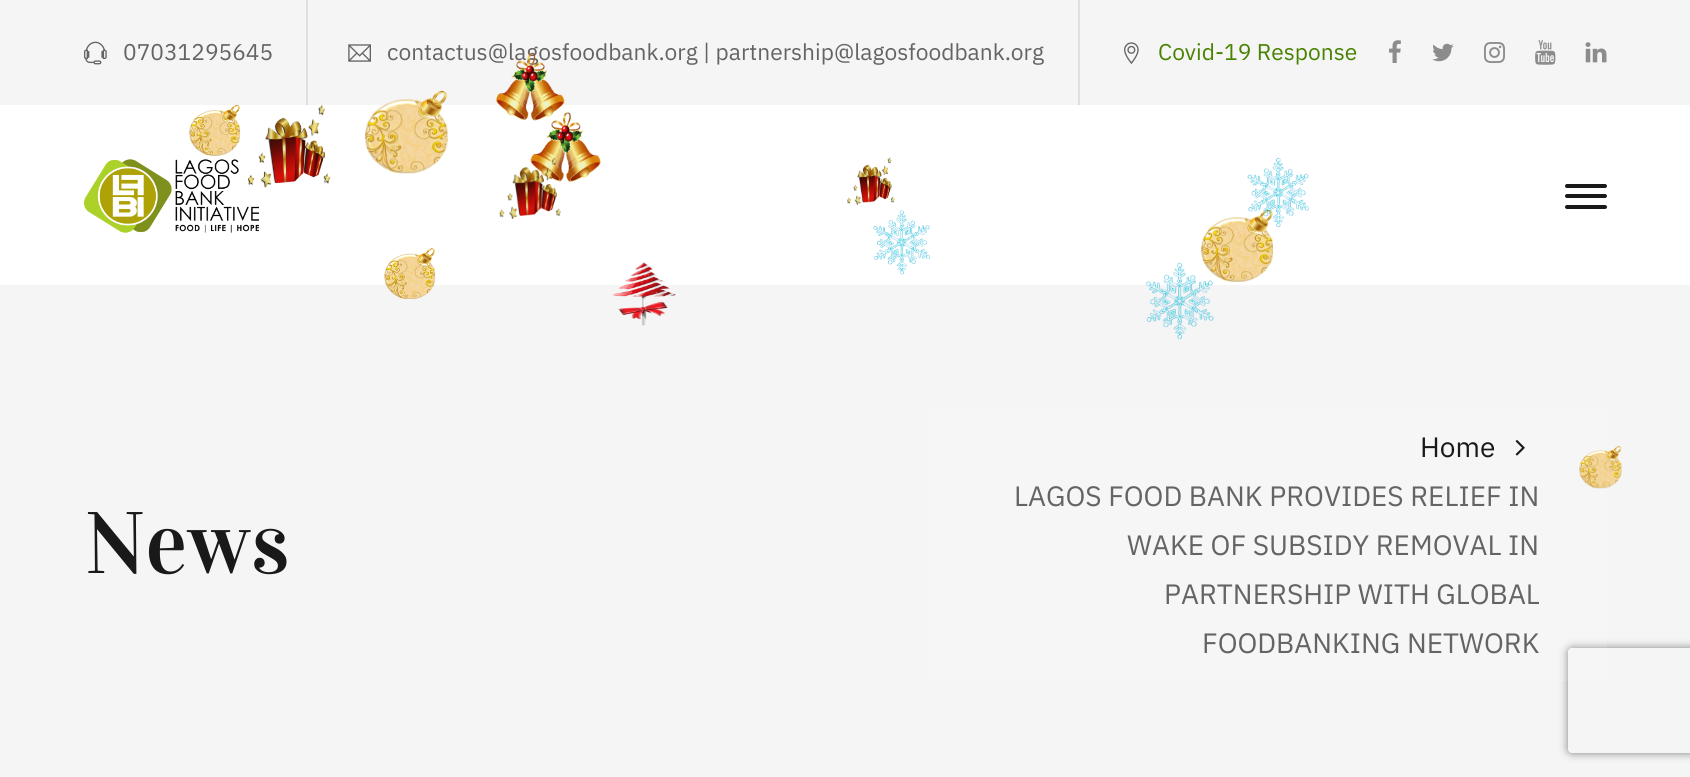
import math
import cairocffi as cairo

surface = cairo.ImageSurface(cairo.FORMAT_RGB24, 1690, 777)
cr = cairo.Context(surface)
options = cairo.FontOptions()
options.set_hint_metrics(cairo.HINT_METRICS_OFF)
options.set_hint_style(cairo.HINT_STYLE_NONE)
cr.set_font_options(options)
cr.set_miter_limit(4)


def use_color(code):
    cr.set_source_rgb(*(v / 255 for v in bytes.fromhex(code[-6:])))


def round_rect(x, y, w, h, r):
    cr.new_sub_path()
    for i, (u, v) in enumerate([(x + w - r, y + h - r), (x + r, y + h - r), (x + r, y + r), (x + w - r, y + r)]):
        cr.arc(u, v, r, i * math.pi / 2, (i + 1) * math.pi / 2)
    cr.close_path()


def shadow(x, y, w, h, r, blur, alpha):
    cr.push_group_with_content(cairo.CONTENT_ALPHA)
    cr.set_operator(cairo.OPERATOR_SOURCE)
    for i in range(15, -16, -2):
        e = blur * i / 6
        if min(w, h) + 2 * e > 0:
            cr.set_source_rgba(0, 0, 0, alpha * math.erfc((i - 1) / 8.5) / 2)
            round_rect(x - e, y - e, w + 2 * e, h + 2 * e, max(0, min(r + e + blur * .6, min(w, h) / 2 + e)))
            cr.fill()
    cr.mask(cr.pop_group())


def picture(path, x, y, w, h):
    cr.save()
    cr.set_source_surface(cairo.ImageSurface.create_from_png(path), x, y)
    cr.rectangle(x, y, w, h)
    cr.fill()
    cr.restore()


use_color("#ffffff")
cr.paint()
use_color("#f5f5f5")
cr.rectangle(0, 0, 1690, 105)
cr.fill()
picture("img1.png", 84, 41, 23, 24)
cr.select_font_face("IBM Plex Sans")
cr.set_font_size(22.75)
use_color("#646464")
cr.move_to(123, 60)
cr.show_text("07031295645")
use_color("#dddfe1")
cr.rectangle(306, 0, 2, 105)
cr.fill()
picture("img2.png", 348, 44, 23, 18)
use_color("#646464")
cr.move_to(387, 60)
cr.show_text("contactus@lagosfoodbank.org | partnership@lagosfoodbank.org")
use_color("#dddfe1")
cr.rectangle(1078, 0, 2, 105)
cr.fill()
picture("img3.png", 1124, 42, 15, 22)
use_color("#488201")
cr.move_to(1158, 60)
cr.show_text("Covid-19 Response")
picture("img4.png", 1389, 40, 12, 23)
picture("img5.png", 1432, 43, 22, 19)
picture("img6.png", 1484, 42, 21, 21)
picture("img7.png", 1535, 40, 21, 25)
picture("img8.png", 1585, 42, 22, 21)
picture("img9.png", 84, 159, 175, 74)
use_color("#191919")
round_rect(1565, 184, 42, 4, 2)
cr.fill()
round_rect(1565, 194, 42, 4, 2)
cr.fill()
round_rect(1565, 205, 42, 4, 2)
cr.fill()
use_color("#f5f5f5")
cr.rectangle(0, 285, 1690, 492)
cr.fill()
cr.select_font_face("Vidaloka")
cr.set_font_size(87.5)
use_color("#191919")
cr.move_to(85, 573)
cr.show_text("News")
cr.save()
cr.set_fill_rule(cairo.FILL_RULE_EVEN_ODD)
cr.new_path()
cr.move_to(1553, 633)
cr.line_to(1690, 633)
cr.line_to(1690, 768)
cr.line_to(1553, 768)
cr.close_path()
cr.move_to(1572, 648)
cr.line_to(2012, 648)
cr.curve_to(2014, 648, 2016, 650, 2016, 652)
cr.line_to(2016, 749)
cr.curve_to(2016, 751, 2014, 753, 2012, 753)
cr.line_to(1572, 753)
cr.curve_to(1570, 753, 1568, 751, 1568, 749)
cr.line_to(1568, 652)
cr.curve_to(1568, 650, 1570, 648, 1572, 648)
cr.close_path()
cr.clip()
use_color("#808080")
shadow(1568, 648, 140, 105, 4, 4.5, 1)
cr.restore()
cr.set_source_rgba(1, 1, 1, 0.1)
round_rect(929, 408, 678, 273, 9)
cr.fill()
cr.select_font_face("IBM Plex Sans")
cr.set_font_size(28)
use_color("#191919")
cr.move_to(1420, 457)
cr.show_text("Home")
picture("img10.png", 1515, 440, 10, 16)
use_color("#646464")
cr.move_to(1014, 506)
cr.show_text("LAGOS FOOD BANK PROVIDES RELIEF IN")
cr.move_to(1127, 555)
cr.show_text("WAKE OF SUBSIDY REMOVAL IN")
cr.move_to(1164, 604)
cr.show_text("PARTNERSHIP WITH GLOBAL")
cr.move_to(1202, 653)
cr.show_text("FOODBANKING NETWORK")
picture("img11.png", 189, 105, 52, 51)
picture("img12.png", 248, 105, 83, 83)
picture("img13.png", 365, 91, 83, 83)
picture("img15.png", 530, 112, 71, 70)
picture("img14.png", 496, 52, 69, 69)
picture("img16.png", 499, 157, 62, 62)
picture("img17.png", 847, 157, 48, 48)
picture("img23.png", 1201, 210, 72, 72)
picture("img18.png", 1247, 157, 62, 71)
picture("img19.png", 384, 248, 52, 52)
picture("img20.png", 612, 262, 64, 64)
picture("img21.png", 873, 210, 57, 65)
picture("img22.png", 1145, 262, 69, 78)
picture("img24.png", 1579, 446, 43, 43)
surface.write_to_png("result.png")
